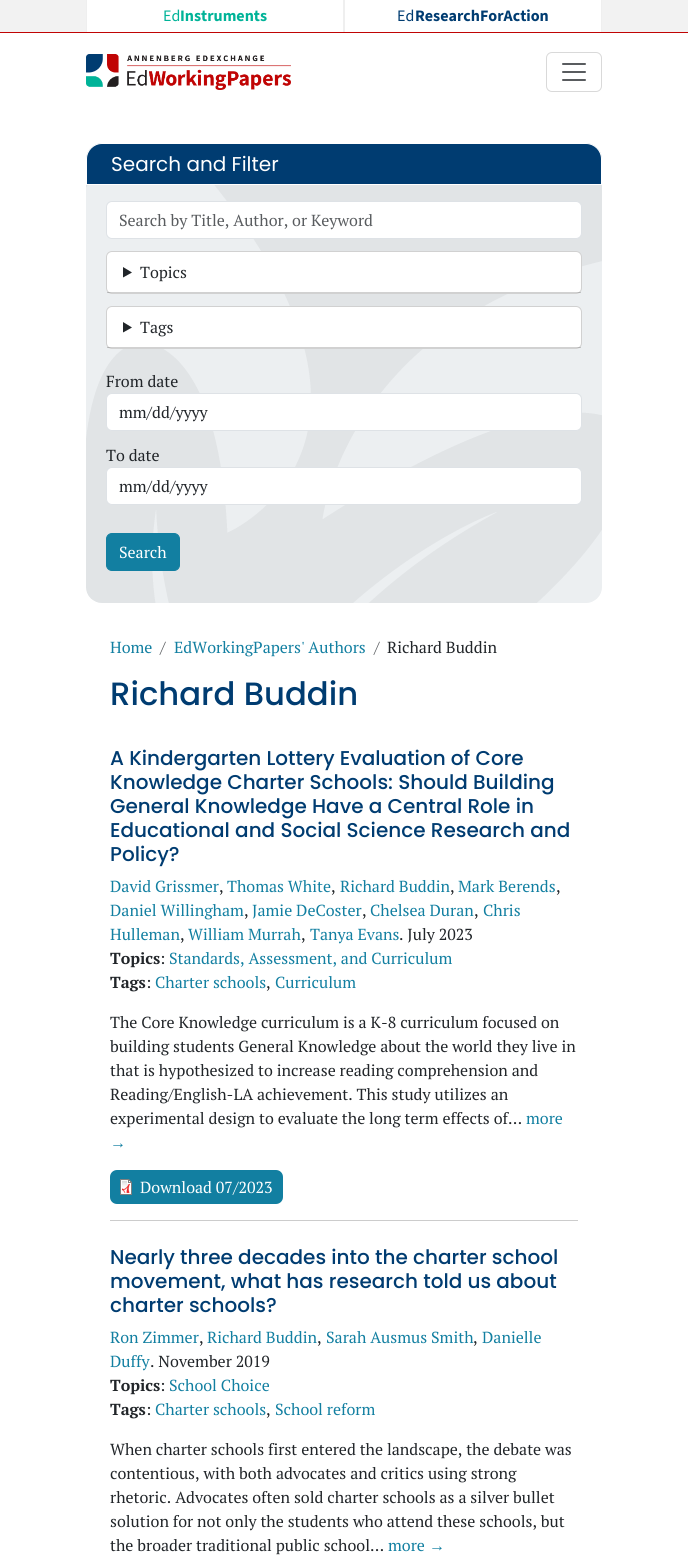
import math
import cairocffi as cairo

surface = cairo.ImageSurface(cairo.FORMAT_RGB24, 688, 1557)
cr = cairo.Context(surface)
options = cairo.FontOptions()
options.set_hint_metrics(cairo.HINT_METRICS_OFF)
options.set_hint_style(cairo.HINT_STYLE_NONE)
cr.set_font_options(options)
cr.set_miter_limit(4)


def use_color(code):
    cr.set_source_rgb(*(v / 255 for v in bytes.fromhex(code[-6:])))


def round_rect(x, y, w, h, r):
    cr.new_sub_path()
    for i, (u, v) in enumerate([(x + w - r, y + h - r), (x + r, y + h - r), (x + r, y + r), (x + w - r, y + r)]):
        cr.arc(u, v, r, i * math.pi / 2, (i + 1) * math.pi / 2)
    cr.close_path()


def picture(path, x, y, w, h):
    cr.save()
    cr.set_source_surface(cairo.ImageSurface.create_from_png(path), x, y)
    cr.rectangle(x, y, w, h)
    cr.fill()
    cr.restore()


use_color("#ffffff")
cr.paint()
use_color("#f2f2f2")
cr.rectangle(0, 0, 688, 32)
cr.fill()
use_color("#c00404")
cr.rectangle(0, 32, 688, 1)
cr.fill()
use_color("#ffffff")
cr.rectangle(87, 0, 256, 32)
cr.fill()
use_color("#efefef")
cr.rectangle(343, 0, 2, 32)
cr.fill()
cr.rectangle(86, 0, 1, 32)
cr.fill()
cr.select_font_face("Source Sans 3")
cr.set_font_size(16)
use_color("#00b398")
cr.move_to(163, 21)
cr.show_text("Ed")
cr.select_font_face("Source Sans 3", cairo.FONT_SLANT_NORMAL, cairo.FONT_WEIGHT_BOLD)
cr.move_to(180, 21)
cr.show_text("Instruments")
use_color("#ffffff")
cr.rectangle(345, 0, 256, 32)
cr.fill()
use_color("#efefef")
cr.rectangle(601, 0, 1, 32)
cr.fill()
cr.select_font_face("Source Sans 3")
use_color("#003c71")
cr.move_to(397, 21)
cr.show_text("Ed")
cr.select_font_face("Source Sans 3", cairo.FONT_SLANT_NORMAL, cairo.FONT_WEIGHT_BOLD)
cr.move_to(415, 21)
cr.show_text("ResearchForAction")
picture("img1.png", 86, 54, 205, 36)
round_rect(546.5, 52.5, 55, 39, 5.5)
use_color("#d9d9d9")
cr.set_line_width(1)
cr.stroke()
picture("img2.png", 562, 63, 24, 18)
picture("img3.png", 86, 143, 516, 460)
use_color("#003c71")
cr.new_path()
cr.move_to(102, 143.5)
cr.line_to(586, 143.5)
cr.curve_to(594.5, 143.5, 601.5, 150.5, 601.5, 159)
cr.line_to(601.5, 184.5)
cr.line_to(86.5, 184.5)
cr.line_to(86.5, 159)
cr.curve_to(86.5, 150.5, 93.5, 143.5, 102, 143.5)
cr.close_path()
cr.fill_preserve()
use_color("#ffffff")
cr.stroke()
cr.select_font_face("Poppins")
cr.set_font_size(20)
cr.move_to(111, 171)
cr.show_text("Search and Filter")
round_rect(106.5, 201.5, 475, 37, 5.5)
cr.fill_preserve()
use_color("#dee2e6")
cr.stroke()
cr.select_font_face("PT Serif")
cr.set_font_size(16)
use_color("#595c5f")
cr.move_to(119, 226)
cr.show_text("Search by Title, Author, or Keyword")
use_color("#ffffff")
round_rect(106, 251, 476, 43, 6)
cr.fill()
round_rect(106.5, 251.5, 475, 42, 5.5)
cr.set_source_rgba(0, 0, 0, 0.18)
cr.stroke()
cr.rectangle(107, 292, 474, 1)
cr.fill()
use_color("#212529")
cr.new_path()
cr.move_to(123, 267)
cr.line_to(132, 272.5)
cr.line_to(123, 277.5)
cr.close_path()
cr.fill()
cr.move_to(140, 278)
cr.show_text("Topics")
use_color("#ffffff")
round_rect(106, 306, 476, 43, 6)
cr.fill()
round_rect(106.5, 306.5, 475, 42, 5.5)
cr.set_source_rgba(0, 0, 0, 0.18)
cr.stroke()
cr.rectangle(107, 347, 474, 1)
cr.fill()
use_color("#212529")
cr.new_path()
cr.move_to(123, 322)
cr.line_to(132, 327.5)
cr.line_to(123, 332.5)
cr.close_path()
cr.fill()
cr.move_to(140, 333)
cr.show_text("Tags")
cr.move_to(106, 387)
cr.show_text("From date")
use_color("#ffffff")
round_rect(106.5, 393.5, 475, 37, 5.5)
cr.fill_preserve()
use_color("#dee2e6")
cr.stroke()
use_color("#212529")
cr.move_to(119, 418)
cr.show_text("mm/dd/yyyy")
cr.move_to(106, 461)
cr.show_text("To date")
use_color("#ffffff")
round_rect(106.5, 467.5, 475, 37, 5.5)
cr.fill_preserve()
use_color("#dee2e6")
cr.stroke()
use_color("#212529")
cr.move_to(119, 492)
cr.show_text("mm/dd/yyyy")
use_color("#127fa1")
round_rect(106.5, 533.5, 73, 37, 5.5)
cr.fill_preserve()
cr.stroke()
use_color("#ffffff")
cr.move_to(119, 558)
cr.show_text("Search")
use_color("#127fa1")
cr.move_to(110, 653)
cr.show_text("Home")
use_color("#595c5f")
cr.move_to(160, 653)
cr.show_text("/")
use_color("#127fa1")
cr.move_to(174, 653)
cr.show_text("EdWorkingPapers' Authors")
use_color("#595c5f")
cr.move_to(374, 653)
cr.show_text("/")
use_color("#212529")
cr.move_to(387, 653)
cr.show_text("Richard Buddin")
cr.select_font_face("Poppins Medium")
cr.set_font_size(32.25)
use_color("#003c71")
cr.move_to(110, 705)
cr.show_text("Richard Buddin")
use_color("#cccccc")
cr.rectangle(110, 1220, 468, 1)
cr.fill()
cr.set_font_size(20)
use_color("#003c71")
cr.move_to(110, 765)
cr.show_text("A Kindergarten Lottery Evaluation of Core")
cr.move_to(110, 789)
cr.show_text("Knowledge Charter Schools: Should Building")
cr.move_to(110, 813)
cr.show_text("General Knowledge Have a Central Role in")
cr.move_to(110, 837)
cr.show_text("Educational and Social Science Research and")
cr.move_to(110, 861)
cr.show_text("Policy?")
cr.select_font_face("PT Serif")
cr.set_font_size(16)
use_color("#127fa1")
cr.move_to(110, 892)
cr.show_text("David Grissmer")
use_color("#212529")
cr.move_to(219, 892)
cr.show_text(",")
use_color("#127fa1")
cr.move_to(227, 892)
cr.show_text("Thomas White")
use_color("#212529")
cr.move_to(331, 892)
cr.show_text(",")
use_color("#127fa1")
cr.move_to(340, 892)
cr.show_text("Richard Buddin")
use_color("#212529")
cr.move_to(450, 892)
cr.show_text(",")
use_color("#127fa1")
cr.move_to(458, 892)
cr.show_text("Mark Berends")
use_color("#212529")
cr.move_to(556, 892)
cr.show_text(",")
use_color("#127fa1")
cr.move_to(110, 916)
cr.show_text("Daniel Willingham")
use_color("#212529")
cr.move_to(244, 916)
cr.show_text(",")
use_color("#127fa1")
cr.move_to(252, 916)
cr.show_text("Jamie DeCoster")
use_color("#212529")
cr.move_to(362, 916)
cr.show_text(",")
use_color("#127fa1")
cr.move_to(370, 916)
cr.show_text("Chelsea Duran")
use_color("#212529")
cr.move_to(474, 916)
cr.show_text(",")
use_color("#127fa1")
cr.move_to(483, 916)
cr.show_text("Chris")
cr.move_to(110, 940)
cr.show_text("Hulleman")
use_color("#212529")
cr.move_to(180, 940)
cr.show_text(",")
use_color("#127fa1")
cr.move_to(188, 940)
cr.show_text("William Murrah")
use_color("#212529")
cr.move_to(301, 940)
cr.show_text(",")
use_color("#127fa1")
cr.move_to(310, 940)
cr.show_text("Tanya Evans")
use_color("#212529")
cr.move_to(399, 940)
cr.show_text(". July 2023")
cr.select_font_face("PT Serif", cairo.FONT_SLANT_NORMAL, cairo.FONT_WEIGHT_BOLD)
cr.move_to(110, 964)
cr.show_text("Topics")
cr.select_font_face("PT Serif")
cr.move_to(160, 964)
cr.show_text(":")
use_color("#127fa1")
cr.move_to(169, 964)
cr.show_text("Standards, Assessment, and Curriculum")
cr.select_font_face("PT Serif", cairo.FONT_SLANT_NORMAL, cairo.FONT_WEIGHT_BOLD)
use_color("#212529")
cr.move_to(110, 988)
cr.show_text("Tags")
cr.select_font_face("PT Serif")
cr.move_to(146, 988)
cr.show_text(":")
use_color("#127fa1")
cr.move_to(155, 988)
cr.show_text("Charter schools")
use_color("#212529")
cr.move_to(266, 988)
cr.show_text(",")
use_color("#127fa1")
cr.move_to(275, 988)
cr.show_text("Curriculum")
use_color("#212529")
cr.move_to(110, 1028)
cr.show_text("The Core Knowledge curriculum is a K-8 curriculum focused on")
cr.move_to(110, 1052)
cr.show_text("building students General Knowledge about the world they live in")
cr.move_to(110, 1076)
cr.show_text("that is hypothesized to increase reading comprehension and")
cr.move_to(110, 1100)
cr.show_text("Reading/English-LA achievement. This study utilizes an")
cr.move_to(110, 1124)
cr.show_text("experimental design to evaluate the long term effects of…")
use_color("#127fa1")
cr.move_to(526, 1124)
cr.show_text("more")
cr.select_font_face("Liberation Serif")
cr.move_to(110, 1148)
cr.show_text("→")
round_rect(110, 1170, 173, 34, 7)
cr.fill()
picture("img4.png", 120, 1179, 12, 16)
cr.select_font_face("PT Serif")
use_color("#ffffff")
cr.move_to(140, 1193)
cr.show_text("Download 07/2023")
cr.select_font_face("Poppins Medium")
cr.set_font_size(20)
use_color("#003c71")
cr.move_to(110, 1264)
cr.show_text("Nearly three decades into the charter school")
cr.move_to(110, 1288)
cr.show_text("movement, what has research told us about")
cr.move_to(110, 1312)
cr.show_text("charter schools?")
cr.select_font_face("PT Serif")
cr.set_font_size(16)
use_color("#127fa1")
cr.move_to(110, 1343)
cr.show_text("Ron Zimmer")
use_color("#212529")
cr.move_to(199, 1343)
cr.show_text(",")
use_color("#127fa1")
cr.move_to(207, 1343)
cr.show_text("Richard Buddin")
use_color("#212529")
cr.move_to(317, 1343)
cr.show_text(",")
use_color("#127fa1")
cr.move_to(326, 1343)
cr.show_text("Sarah Ausmus Smith")
use_color("#212529")
cr.move_to(473, 1343)
cr.show_text(",")
use_color("#127fa1")
cr.move_to(482, 1343)
cr.show_text("Danielle")
cr.move_to(110, 1367)
cr.show_text("Duffy")
use_color("#212529")
cr.move_to(150, 1367)
cr.show_text(". November 2019")
cr.select_font_face("PT Serif", cairo.FONT_SLANT_NORMAL, cairo.FONT_WEIGHT_BOLD)
cr.move_to(110, 1391)
cr.show_text("Topics")
cr.select_font_face("PT Serif")
cr.move_to(160, 1391)
cr.show_text(":")
use_color("#127fa1")
cr.move_to(169, 1391)
cr.show_text("School Choice")
cr.select_font_face("PT Serif", cairo.FONT_SLANT_NORMAL, cairo.FONT_WEIGHT_BOLD)
use_color("#212529")
cr.move_to(110, 1415)
cr.show_text("Tags")
cr.select_font_face("PT Serif")
cr.move_to(146, 1415)
cr.show_text(":")
use_color("#127fa1")
cr.move_to(155, 1415)
cr.show_text("Charter schools")
use_color("#212529")
cr.move_to(266, 1415)
cr.show_text(",")
use_color("#127fa1")
cr.move_to(275, 1415)
cr.show_text("School reform")
use_color("#212529")
cr.move_to(110, 1455)
cr.show_text("When charter schools first entered the landscape, the debate was")
cr.move_to(110, 1479)
cr.show_text("contentious, with both advocates and critics using strong")
cr.move_to(110, 1503)
cr.show_text("rhetoric. Advocates often sold charter schools as a silver bullet")
cr.move_to(110, 1527)
cr.show_text("solution for not only the students who attend these schools, but")
cr.move_to(110, 1551)
cr.show_text("the broader traditional public school…")
use_color("#127fa1")
cr.move_to(388, 1551)
cr.show_text("more")
cr.select_font_face("Liberation Serif")
cr.move_to(429, 1551)
cr.show_text("→")
surface.write_to_png("result.png")
